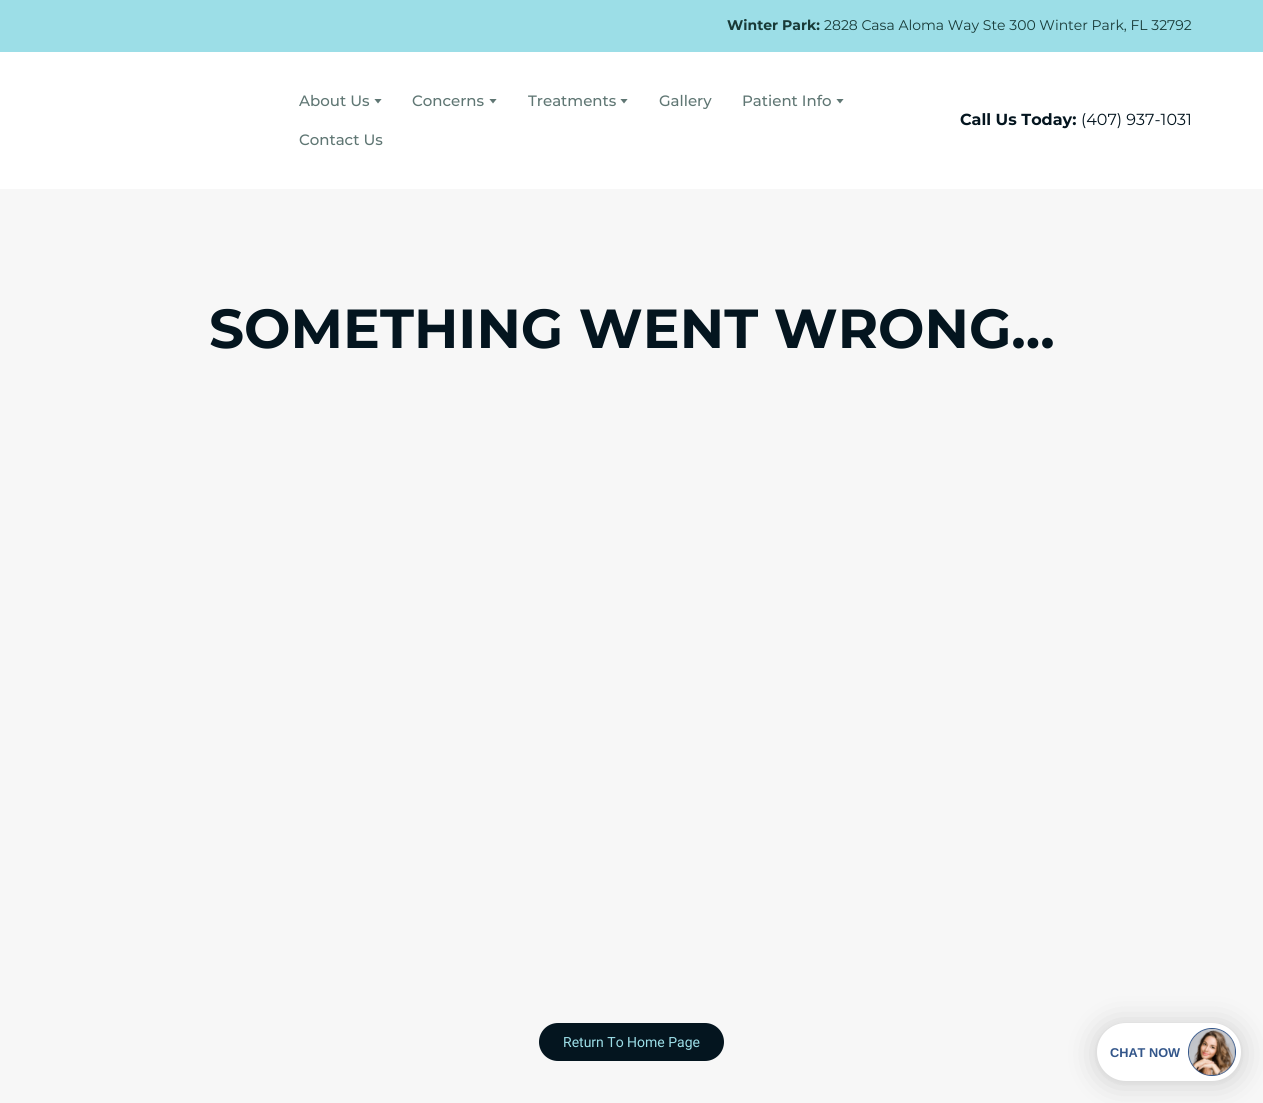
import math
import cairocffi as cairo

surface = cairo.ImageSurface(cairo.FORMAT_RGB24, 1263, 1103)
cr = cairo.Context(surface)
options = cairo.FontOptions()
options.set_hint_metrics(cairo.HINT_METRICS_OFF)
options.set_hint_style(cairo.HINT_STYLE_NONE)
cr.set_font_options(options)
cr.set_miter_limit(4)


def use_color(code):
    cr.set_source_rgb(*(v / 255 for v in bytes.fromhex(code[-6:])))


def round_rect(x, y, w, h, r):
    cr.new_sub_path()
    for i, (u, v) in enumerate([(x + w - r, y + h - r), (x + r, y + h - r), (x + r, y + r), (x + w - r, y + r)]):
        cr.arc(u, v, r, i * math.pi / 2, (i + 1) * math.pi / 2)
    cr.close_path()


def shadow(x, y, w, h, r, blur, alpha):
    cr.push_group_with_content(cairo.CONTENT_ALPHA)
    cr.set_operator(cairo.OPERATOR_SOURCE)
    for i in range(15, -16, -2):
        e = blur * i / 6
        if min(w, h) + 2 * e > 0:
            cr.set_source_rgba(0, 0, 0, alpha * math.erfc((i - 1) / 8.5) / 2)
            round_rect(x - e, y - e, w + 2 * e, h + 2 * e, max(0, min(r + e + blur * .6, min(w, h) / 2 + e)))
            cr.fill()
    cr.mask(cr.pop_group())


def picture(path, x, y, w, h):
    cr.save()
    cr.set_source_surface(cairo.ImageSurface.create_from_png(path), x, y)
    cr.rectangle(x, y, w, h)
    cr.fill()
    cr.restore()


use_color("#9cdee7")
cr.paint()
cr.select_font_face("Montserrat", cairo.FONT_SLANT_NORMAL, cairo.FONT_WEIGHT_BOLD)
cr.set_font_size(14)
use_color("#183a37")
cr.move_to(727, 30)
cr.show_text("Winter Park:")
cr.select_font_face("Montserrat")
cr.move_to(824, 30)
cr.show_text("2828 Casa Aloma Way Ste 300 Winter Park, FL 32792")
use_color("#ffffff")
cr.rectangle(0, 52, 1263, 137)
cr.fill()
cr.select_font_face("Montserrat Medium")
cr.set_font_size(15)
use_color("#5f7673")
cr.move_to(299, 106)
cr.show_text("About Us")
cr.save()
cr.rectangle(373, 99, 9, 5)
cr.clip()
cr.new_path()
cr.move_to(378, 103.5)
cr.line_to(382, 98.5)
cr.line_to(374, 98.5)
cr.close_path()
cr.fill()
cr.restore()
cr.move_to(412, 106)
cr.show_text("Concerns")
cr.save()
cr.rectangle(488, 99, 9, 5)
cr.clip()
cr.new_path()
cr.move_to(493, 103.5)
cr.line_to(497, 98.5)
cr.line_to(489, 98.5)
cr.close_path()
cr.fill()
cr.restore()
cr.move_to(528, 106)
cr.show_text("Treatments")
cr.save()
cr.rectangle(619, 99, 10, 5)
cr.clip()
cr.new_path()
cr.move_to(624, 103.5)
cr.line_to(628, 98.5)
cr.line_to(620, 98.5)
cr.close_path()
cr.fill()
cr.restore()
cr.move_to(659, 106)
cr.show_text("Gallery")
cr.move_to(742, 106)
cr.show_text("Patient Info")
cr.save()
cr.rectangle(835, 99, 9, 5)
cr.clip()
cr.new_path()
cr.move_to(840, 103.5)
cr.line_to(844, 98.5)
cr.line_to(836, 98.5)
cr.close_path()
cr.fill()
cr.restore()
cr.move_to(299, 145)
cr.show_text("Contact Us")
cr.select_font_face("Montserrat", cairo.FONT_SLANT_NORMAL, cairo.FONT_WEIGHT_BOLD)
cr.set_font_size(16)
use_color("#04151f")
cr.move_to(960, 125)
cr.show_text("Call Us Today:")
cr.select_font_face("Montserrat")
cr.move_to(1081, 125)
cr.show_text("(407) 937-1031")
use_color("#f7f7f7")
cr.rectangle(0, 189, 1263, 914)
cr.fill()
cr.select_font_face("Montserrat", cairo.FONT_SLANT_NORMAL, cairo.FONT_WEIGHT_BOLD)
cr.set_font_size(55)
use_color("#04151f")
cr.move_to(209, 348)
cr.show_text("SOMETHING WENT WRONG...")
round_rect(539, 1023, 185, 38, 19)
cr.fill()
cr.select_font_face("Roboto")
cr.set_font_size(14)
use_color("#9cdee7")
cr.move_to(563, 1047)
cr.show_text("Return To Home Page")
use_color("#000000")
shadow(1097, 1025, 144, 58, 29, 16, 0.16)
shadow(1097, 1024, 144, 58, 29, 3, 0.06)
use_color("#ffffff")
round_rect(1097, 1023, 144, 58, 29)
cr.fill()
cr.select_font_face("Liberation Sans", cairo.FONT_SLANT_NORMAL, cairo.FONT_WEIGHT_BOLD)
cr.set_font_size(12.75)
use_color("#33568a")
cr.move_to(1110, 1057)
cr.show_text("CHAT NOW")
use_color("#2f5388")
cr.new_path()
cr.arc(1212, 1052, 24, 0, 2 * math.pi)
cr.fill()
picture("img1.png", 1189, 1029, 46, 46)
surface.write_to_png("result.png")
